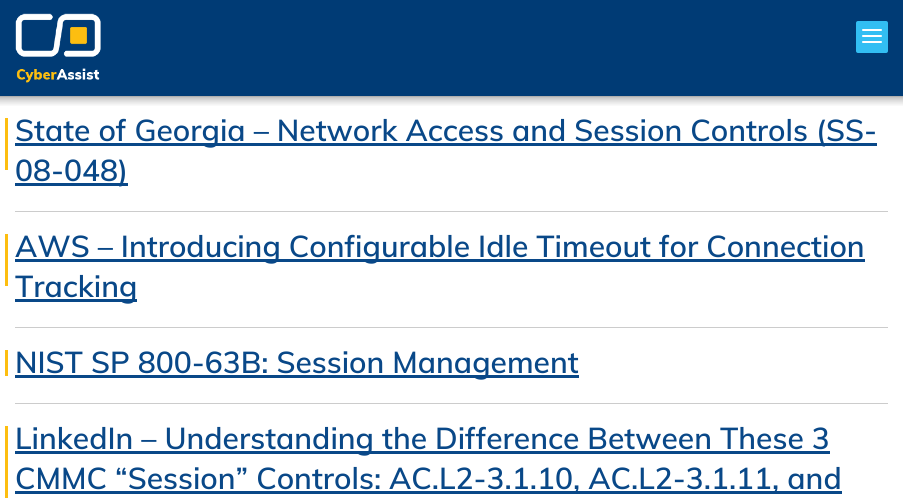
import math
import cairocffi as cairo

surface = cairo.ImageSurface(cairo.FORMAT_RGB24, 903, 498)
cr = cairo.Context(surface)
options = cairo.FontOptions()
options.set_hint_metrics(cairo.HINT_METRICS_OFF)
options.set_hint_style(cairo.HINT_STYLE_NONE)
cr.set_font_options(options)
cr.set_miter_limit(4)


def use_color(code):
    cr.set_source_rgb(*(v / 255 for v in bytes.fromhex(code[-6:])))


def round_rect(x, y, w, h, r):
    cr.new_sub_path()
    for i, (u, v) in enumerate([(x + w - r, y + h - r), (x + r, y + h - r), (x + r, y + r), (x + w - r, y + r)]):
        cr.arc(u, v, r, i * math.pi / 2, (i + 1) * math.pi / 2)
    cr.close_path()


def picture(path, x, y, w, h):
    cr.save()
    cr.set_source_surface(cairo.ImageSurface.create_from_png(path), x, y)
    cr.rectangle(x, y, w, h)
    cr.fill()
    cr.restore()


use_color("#ffffff")
cr.paint()
use_color("#e6e6e6")
cr.rectangle(0, 96, 903, 1)
cr.fill()
use_color("#003b75")
cr.rectangle(0, 0, 903, 96)
cr.fill()
picture("img1.png", 15, 13, 86, 70)
use_color("#32bef3")
round_rect(856, 21, 32, 32, 2)
cr.fill()
picture("img2.png", 862, 29, 20, 14)
picture("img3.png", 0, 96, 903, 10)
use_color("#cccccc")
cr.rectangle(15, 211, 873, 1)
cr.fill()
use_color("#fdbe10")
cr.rectangle(5, 118, 3, 52)
cr.fill()
use_color("#094888")
cr.rectangle(15, 143, 862, 3)
cr.fill()
cr.select_font_face("Muli SemiBold")
cr.set_font_size(30)
cr.move_to(15, 141)
cr.show_text("State of Georgia – Network Access and Session Controls (SS-")
cr.rectangle(15, 183, 113, 3)
cr.fill()
cr.move_to(15, 181)
cr.show_text("08-048)")
use_color("#cccccc")
cr.rectangle(15, 327, 873, 1)
cr.fill()
use_color("#fdbe10")
cr.rectangle(5, 234, 3, 52)
cr.fill()
use_color("#094888")
cr.rectangle(15, 259, 850, 3)
cr.fill()
cr.move_to(15, 257)
cr.show_text("AWS – Introducing Configurable Idle Timeout for Connection")
cr.rectangle(15, 299, 122, 3)
cr.fill()
cr.move_to(15, 297)
cr.show_text("Tracking")
use_color("#cccccc")
cr.rectangle(15, 403, 873, 1)
cr.fill()
use_color("#fdbe10")
cr.rectangle(5, 350, 3, 26)
cr.fill()
use_color("#094888")
cr.rectangle(15, 375, 564, 3)
cr.fill()
cr.move_to(15, 373)
cr.show_text("NIST SP 800-63B: Session Management")
use_color("#fdbe10")
cr.rectangle(5, 426, 3, 72)
cr.fill()
use_color("#094888")
cr.rectangle(15, 451, 815, 3)
cr.fill()
cr.move_to(15, 449)
cr.show_text("LinkedIn – Understanding the Difference Between These 3")
cr.rectangle(15, 491, 827, 3)
cr.fill()
cr.move_to(15, 489)
cr.show_text("CMMC “Session” Controls: AC.L2-3.1.10, AC.L2-3.1.11, and")
surface.write_to_png("result.png")
